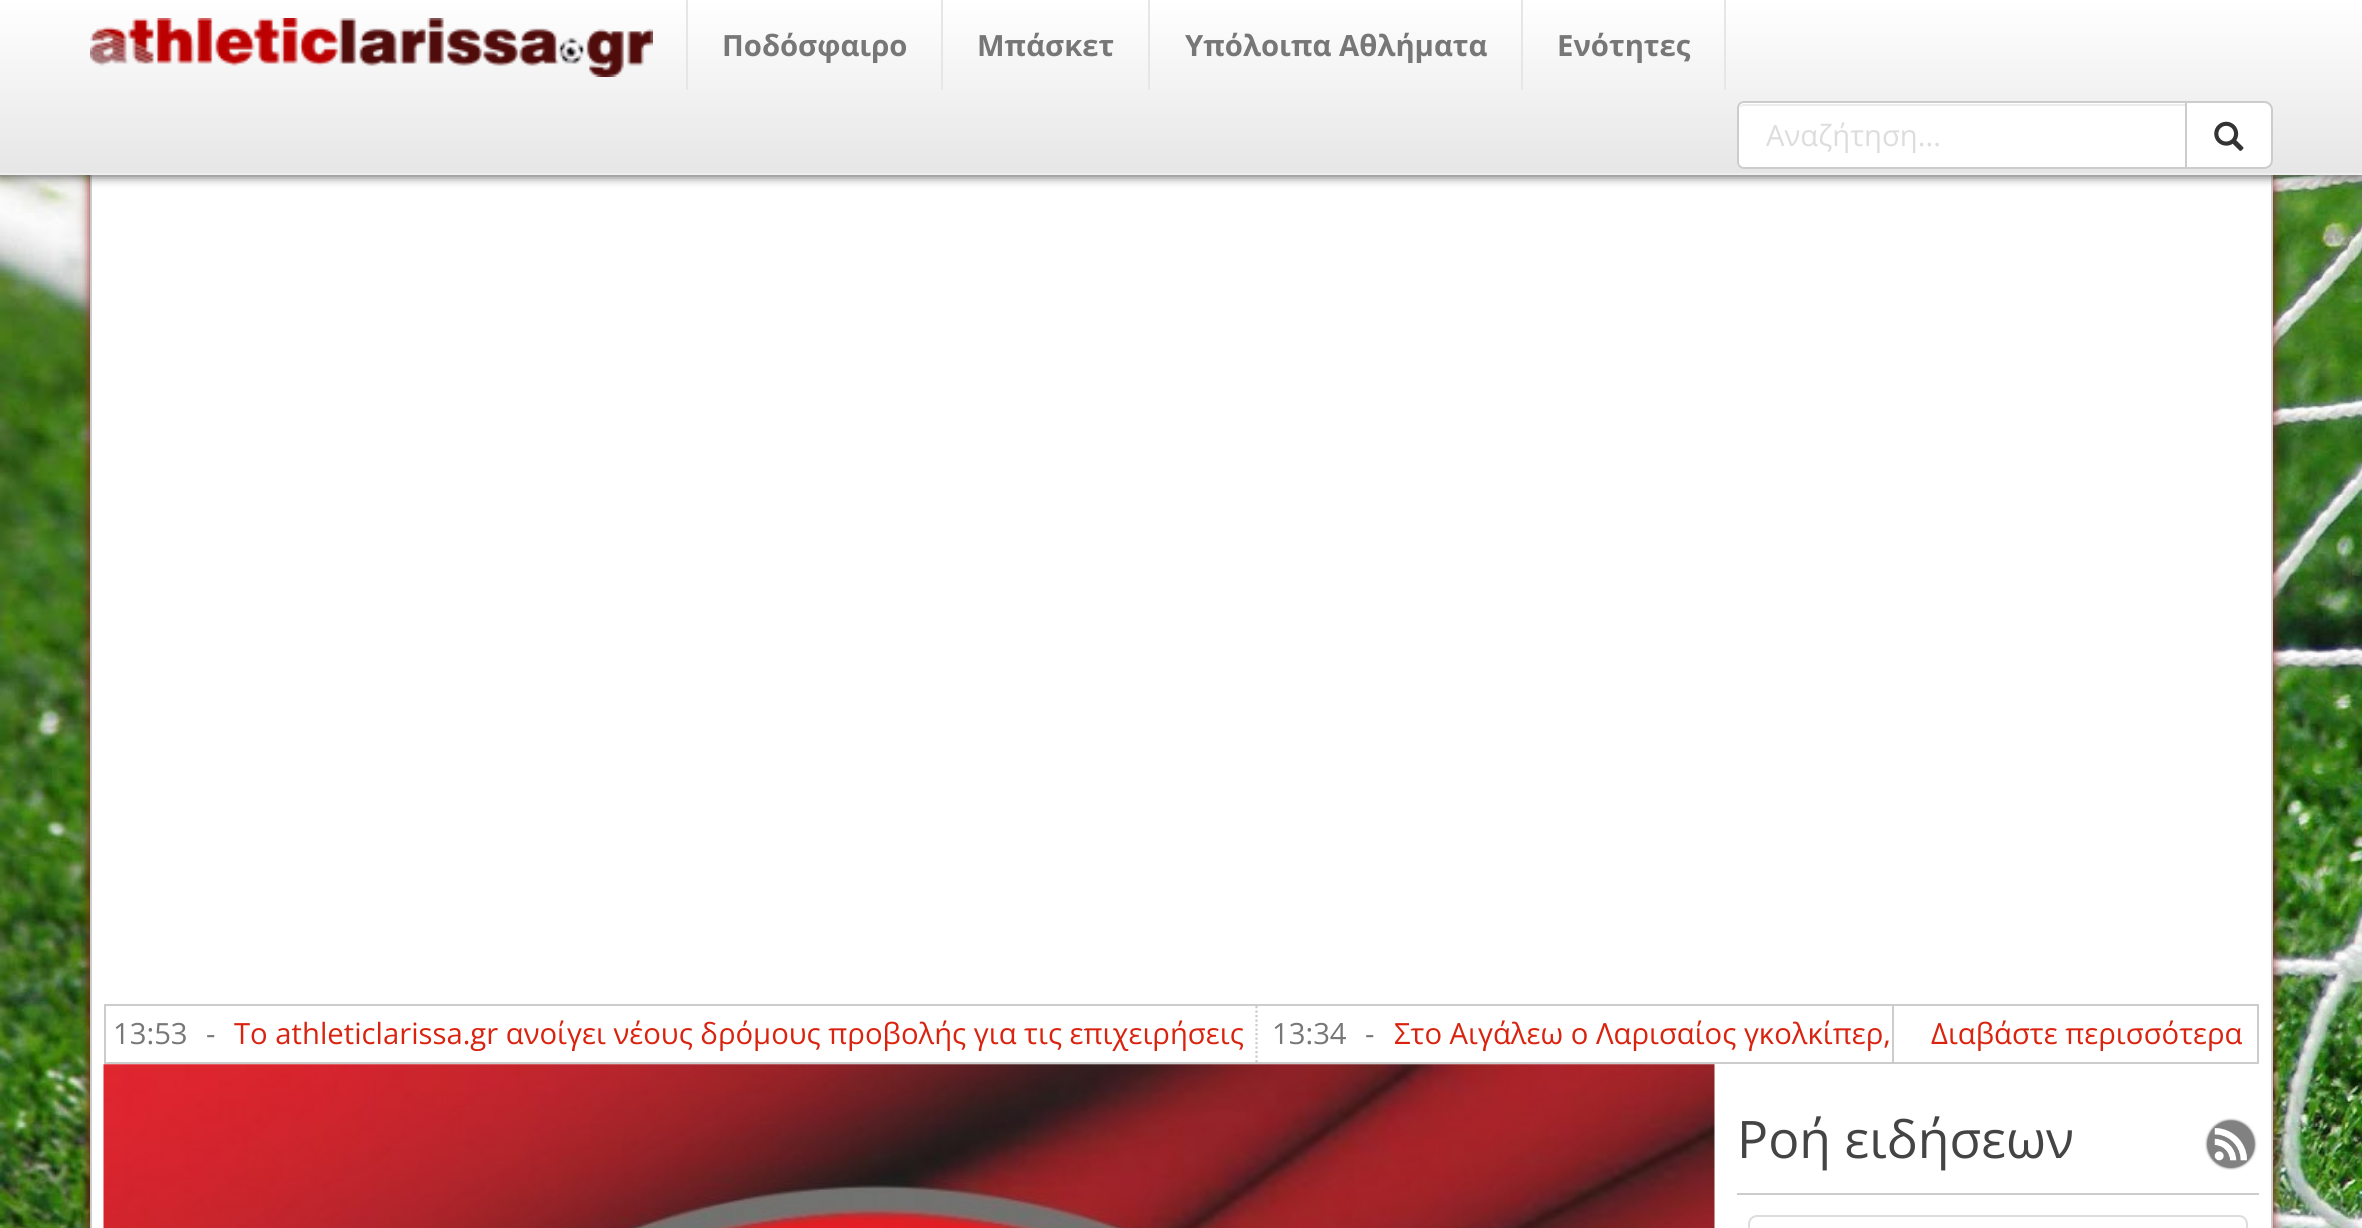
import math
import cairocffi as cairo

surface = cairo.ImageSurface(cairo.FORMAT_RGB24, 2362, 1228)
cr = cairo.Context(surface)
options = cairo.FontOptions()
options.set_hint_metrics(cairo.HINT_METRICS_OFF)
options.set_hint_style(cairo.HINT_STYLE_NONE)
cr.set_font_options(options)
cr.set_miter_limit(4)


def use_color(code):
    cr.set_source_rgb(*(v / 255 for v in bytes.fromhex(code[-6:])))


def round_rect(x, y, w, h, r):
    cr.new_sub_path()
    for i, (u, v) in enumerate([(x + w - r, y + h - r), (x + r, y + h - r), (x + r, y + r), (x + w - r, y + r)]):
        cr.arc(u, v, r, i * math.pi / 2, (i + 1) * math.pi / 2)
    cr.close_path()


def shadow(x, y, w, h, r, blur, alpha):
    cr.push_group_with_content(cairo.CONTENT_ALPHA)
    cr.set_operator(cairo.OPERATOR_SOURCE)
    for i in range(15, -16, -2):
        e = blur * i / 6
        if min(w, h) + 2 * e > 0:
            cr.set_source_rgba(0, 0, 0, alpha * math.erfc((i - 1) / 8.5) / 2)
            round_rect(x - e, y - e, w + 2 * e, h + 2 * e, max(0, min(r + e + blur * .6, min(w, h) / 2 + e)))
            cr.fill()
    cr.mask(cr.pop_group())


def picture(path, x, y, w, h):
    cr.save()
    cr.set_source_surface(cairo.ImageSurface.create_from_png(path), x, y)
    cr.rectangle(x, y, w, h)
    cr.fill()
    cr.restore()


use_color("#ffffff")
cr.paint()
picture("img1.png", 0, 175, 2362, 1053)
use_color("#8a1919")
shadow(90, 79, 2183, 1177, 11, 5.5, 1)
use_color("#ffffff")
cr.rectangle(92, 175, 2179, 1053)
cr.fill()
cr.rectangle(91, 80, 2181, 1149)
use_color("#cccccc")
cr.stroke()
use_color("#4d4d4d")
shadow(0, 0, 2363, 176, 0, 5.5, 1)
gradient = cairo.LinearGradient(1181, 0, 1181, 173)
gradient.add_color_stop_rgba(0, 1, 1, 1, 1)
gradient.add_color_stop_rgba(1, 0.902, 0.902, 0.902, 1)
cr.set_source(gradient)
cr.rectangle(0, 0, 2362, 173)
cr.fill()
use_color("#eeeeee")
cr.rectangle(0, 173, 2362, 2)
cr.fill()
picture("img2.png", 90, 18, 563, 59)
use_color("#e6e6e6")
cr.rectangle(941, 0, 2, 90)
cr.fill()
cr.rectangle(686, 0, 2, 90)
cr.fill()
cr.select_font_face("Open Sans", cairo.FONT_SLANT_NORMAL, cairo.FONT_WEIGHT_BOLD)
cr.set_font_size(29.25)
use_color("#777777")
cr.move_to(722, 56)
cr.show_text("Ποδόσφαιρο")
use_color("#e6e6e6")
cr.rectangle(1148, 0, 2, 90)
cr.fill()
use_color("#777777")
cr.move_to(977, 56)
cr.show_text("Μπάσκετ")
use_color("#e6e6e6")
cr.rectangle(1521, 0, 2, 90)
cr.fill()
use_color("#777777")
cr.move_to(1185, 56)
cr.show_text("Υπόλοιπα Αθλήματα")
use_color("#e6e6e6")
cr.rectangle(1724, 0, 2, 90)
cr.fill()
use_color("#777777")
cr.move_to(1557, 56)
cr.show_text("Ενότητες")
use_color("#ffffff")
cr.new_path()
cr.move_to(1744, 101)
cr.line_to(2187, 101)
cr.line_to(2187, 169)
cr.line_to(1744, 169)
cr.curve_to(1740, 169, 1737, 166, 1737, 162)
cr.line_to(1737, 108)
cr.curve_to(1737, 104, 1740, 101, 1744, 101)
cr.close_path()
cr.fill()
use_color("#ececec")
cr.new_path()
cr.move_to(1744, 106)
cr.line_to(2185, 106)
cr.line_to(2185, 104)
cr.line_to(1744, 104)
cr.curve_to(1741, 104, 1739, 107, 1739, 110)
cr.curve_to(1739, 108, 1741, 106, 1744, 106)
cr.close_path()
cr.fill()
cr.new_path()
cr.move_to(1744, 102)
cr.line_to(2186, 102)
cr.line_to(2186, 168)
cr.line_to(1744, 168)
cr.curve_to(1740.5, 168, 1738, 165.5, 1738, 162)
cr.line_to(1738, 108)
cr.curve_to(1738, 104.5, 1740.5, 102, 1744, 102)
cr.close_path()
use_color("#cccccc")
cr.stroke()
cr.select_font_face("Open Sans")
use_color("#dddddd")
cr.move_to(1766, 146)
cr.show_text("Αναζήτηση...")
use_color("#ffffff")
cr.new_path()
cr.move_to(2186, 102)
cr.line_to(2264, 102)
cr.curve_to(2268.5, 102, 2272, 105.5, 2272, 110)
cr.line_to(2272, 160)
cr.curve_to(2272, 164.5, 2268.5, 168, 2264, 168)
cr.line_to(2186, 168)
cr.close_path()
cr.fill_preserve()
use_color("#cccccc")
cr.stroke()
picture("img3.png", 2214, 121, 30, 30)
cr.rectangle(105, 1005, 2153, 58)
cr.stroke()
cr.rectangle(1892, 1006, 2, 56)
cr.fill()
cr.new_path()
cr.move_to(1256.5, 1006)
cr.line_to(1256.5, 1062)
cr.set_line_width(2.2)
cr.set_dash([2.25, 2.25])
cr.stroke()
use_color("#777777")
cr.move_to(113, 1044)
cr.show_text("13:53")
cr.move_to(206, 1044)
cr.show_text("-")
use_color("#d9230f")
cr.move_to(234, 1044)
cr.show_text("Το athleticlarissa.gr ανοίγει νέους δρόμους προβολής για τις επιχειρήσεις")
use_color("#777777")
cr.move_to(1272, 1044)
cr.show_text("13:34")
cr.move_to(1365, 1044)
cr.show_text("-")
use_color("#d9230f")
cr.move_to(1394, 1044)
cr.show_text("Στο Αιγάλεω ο Λαρισαίος γκολκίπερ,")
cr.move_to(1931, 1044)
cr.show_text("Διαβάστε περισσότερα")
picture("img4.png", 103, 1064, 1612, 164)
use_color("#cccccc")
cr.rectangle(1737, 1193, 522, 2)
cr.fill()
cr.set_font_size(51.75)
use_color("#444444")
cr.move_to(1737, 1158)
cr.show_text("Ροή ειδήσεων")
picture("img5.png", 2205, 1118, 52, 52)
round_rect(1749, 1216, 498, 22, 8)
use_color("#dddddd")
cr.set_line_width(2)
cr.set_dash([])
cr.stroke()
surface.write_to_png("result.png")
